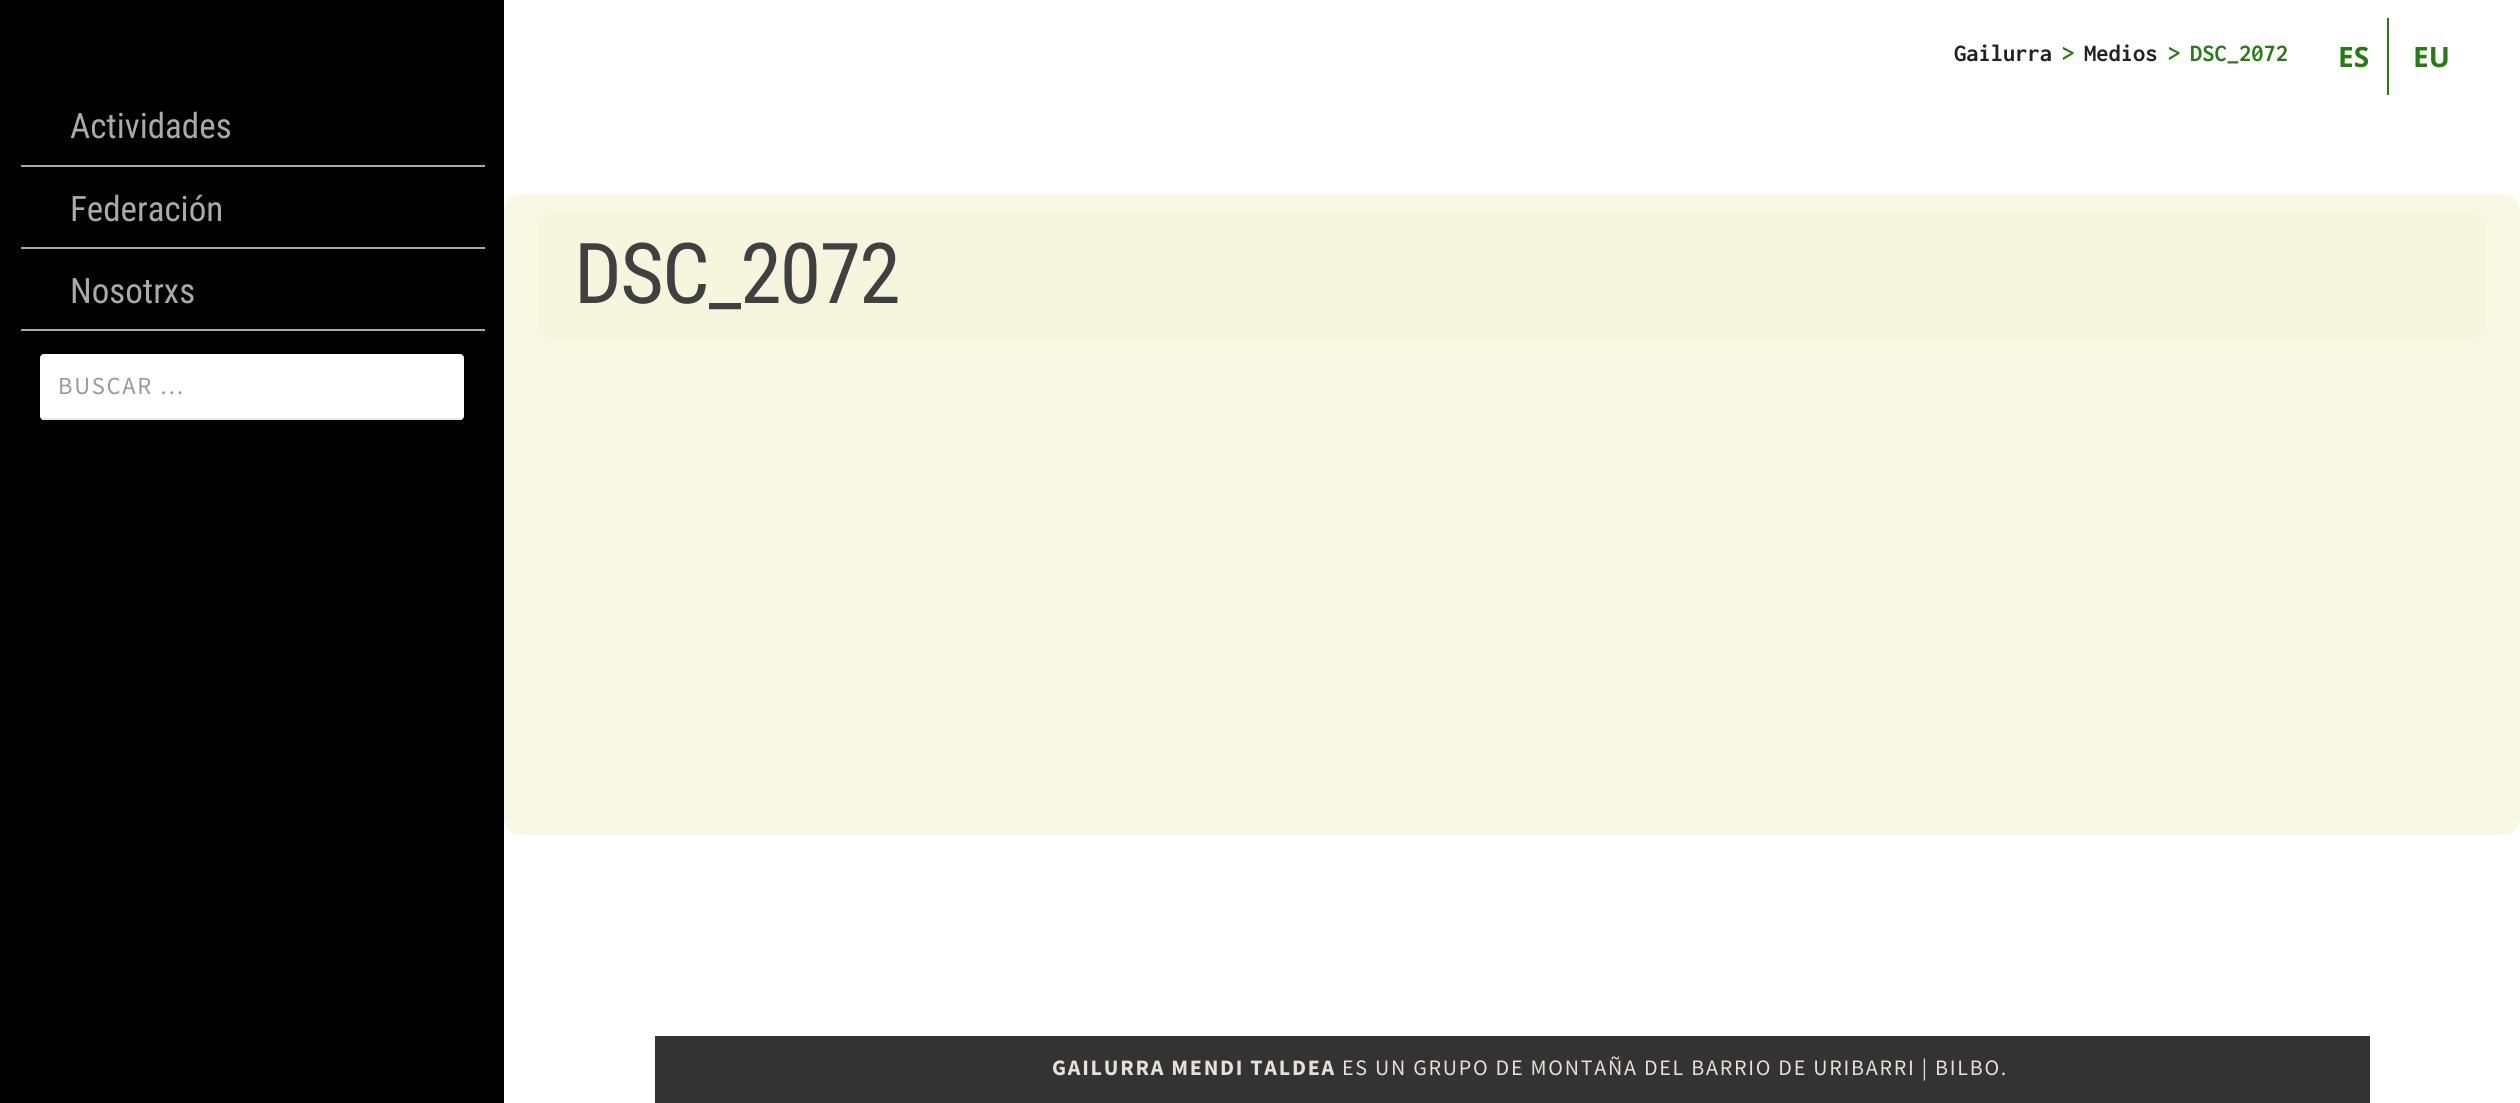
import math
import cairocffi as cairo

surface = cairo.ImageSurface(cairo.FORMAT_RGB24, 2520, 1103)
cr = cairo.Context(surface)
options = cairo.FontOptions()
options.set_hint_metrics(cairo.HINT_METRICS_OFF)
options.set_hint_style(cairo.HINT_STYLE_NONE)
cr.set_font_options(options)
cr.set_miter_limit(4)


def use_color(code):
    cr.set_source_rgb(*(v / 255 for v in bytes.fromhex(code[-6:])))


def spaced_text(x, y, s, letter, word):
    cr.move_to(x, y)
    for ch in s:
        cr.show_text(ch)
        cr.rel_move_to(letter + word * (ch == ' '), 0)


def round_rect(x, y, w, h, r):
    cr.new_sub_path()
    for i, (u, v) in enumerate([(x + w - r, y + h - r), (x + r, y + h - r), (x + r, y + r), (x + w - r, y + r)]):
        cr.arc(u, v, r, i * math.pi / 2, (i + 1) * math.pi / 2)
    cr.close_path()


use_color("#ffffff")
cr.paint()
cr.select_font_face("Inconsolata", cairo.FONT_SLANT_NORMAL, cairo.FONT_WEIGHT_BOLD)
cr.set_font_size(24.5)
use_color("#222222")
cr.move_to(1954, 61)
cr.show_text("Gailurra")
use_color("#267c12")
cr.move_to(2062, 61)
cr.show_text(">")
use_color("#222222")
cr.move_to(2084, 61)
cr.show_text("Medios")
use_color("#267c12")
cr.move_to(2168, 61)
cr.show_text(">")
cr.move_to(2190, 61)
cr.show_text("DSC_2072")
cr.rectangle(2387, 18, 2, 77)
cr.fill()
cr.select_font_face("Open Sans", cairo.FONT_SLANT_NORMAL, cairo.FONT_WEIGHT_BOLD)
cr.set_font_size(28)
cr.move_to(2338, 67)
cr.show_text("ES")
cr.move_to(2413, 67)
cr.show_text("EU")
use_color("#000000")
cr.rectangle(0, 0, 504, 1103)
cr.fill()
use_color("#aaaaaa")
cr.rectangle(21, 165, 464, 2)
cr.fill()
cr.select_font_face("Roboto Condensed")
cr.set_font_size(35)
cr.move_to(70, 138)
cr.show_text("Actividades")
cr.rectangle(21, 247, 464, 2)
cr.fill()
cr.move_to(70, 221)
cr.show_text("Federación")
cr.rectangle(21, 329, 464, 2)
cr.fill()
cr.move_to(70, 303)
cr.show_text("Nosotrxs")
use_color("#ffffff")
round_rect(40, 354, 424, 66, 4)
cr.fill()
use_color("#e8e8e8")
cr.rectangle(42, 418, 420, 2)
cr.fill()
cr.select_font_face("Source Sans Pro")
cr.set_font_size(24.5)
use_color("#999999")
spaced_text(58, 394, "BUSCAR …", 1.75, 0)
use_color("#f8f8e5")
round_rect(504, 194, 2016, 641, 18)
cr.fill()
use_color("#f6f6de")
round_rect(539, 212, 1946, 128, 18)
cr.fill()
cr.select_font_face("Roboto Condensed")
cr.set_font_size(84)
use_color("#404040")
spaced_text(574, 303, "DSC_2072", -1.75, 0)
use_color("#333333")
cr.rectangle(655, 1036, 1715, 67)
cr.fill()
cr.select_font_face("Source Sans Pro", cairo.FONT_SLANT_NORMAL, cairo.FONT_WEIGHT_BOLD)
cr.set_font_size(22.05)
use_color("#e9dede")
spaced_text(1052, 1075, "GAILURRA MENDI TALDEA", 1.75, 0)
cr.select_font_face("Source Sans Pro")
spaced_text(1342, 1075, "ES UN GRUPO DE MONTAÑA DEL BARRIO DE URIBARRI | BILBO.", 1.75, 0)
surface.write_to_png("result.png")
